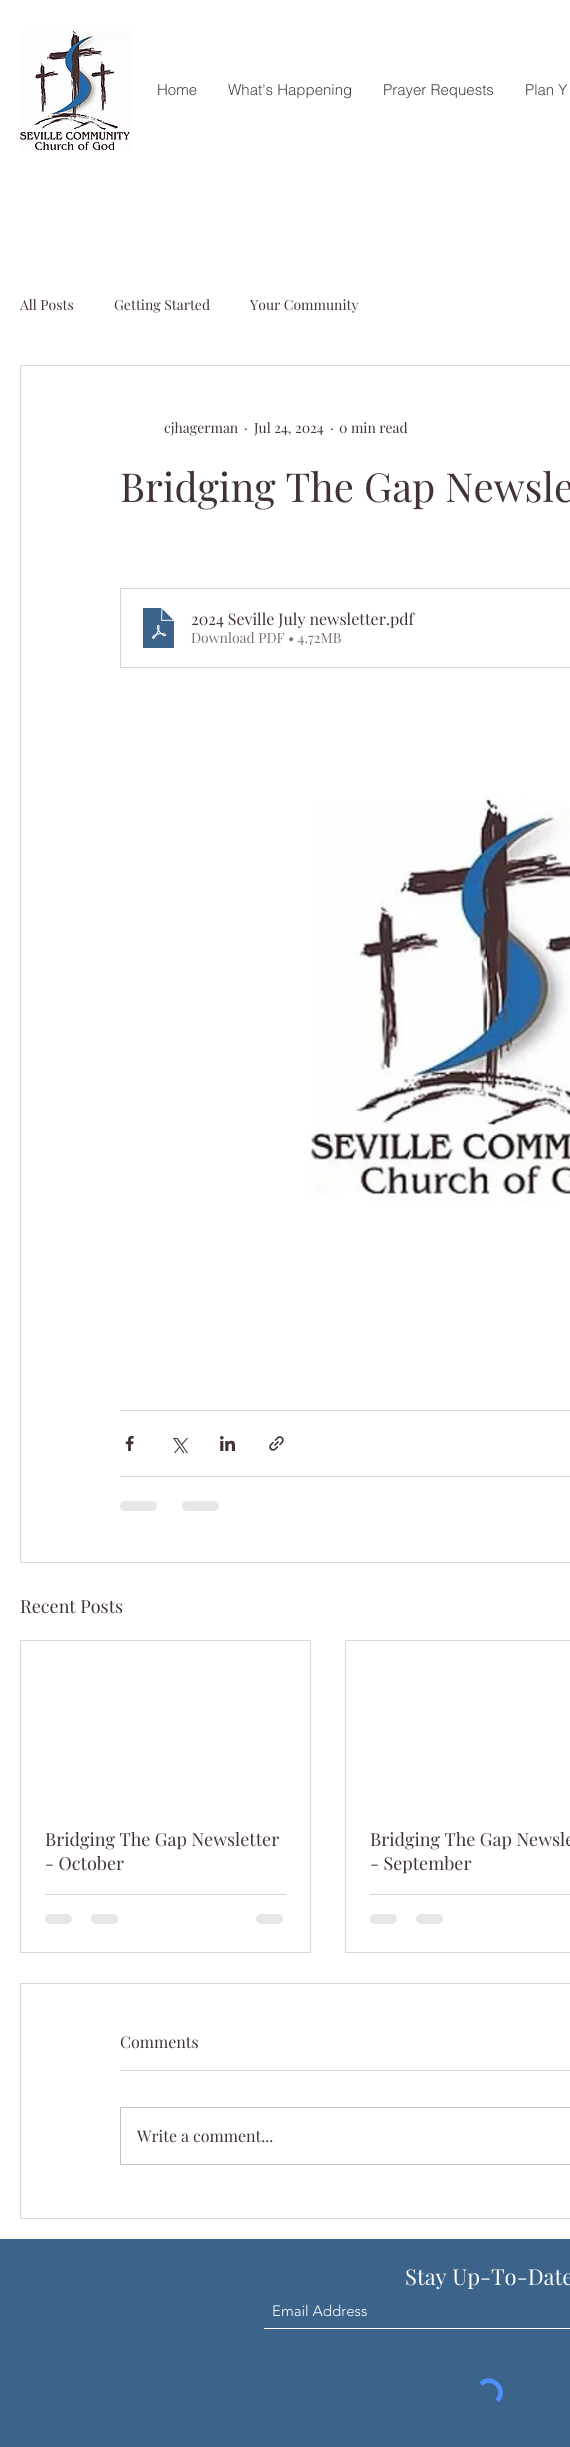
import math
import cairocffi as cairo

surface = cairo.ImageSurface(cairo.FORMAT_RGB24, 570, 2447)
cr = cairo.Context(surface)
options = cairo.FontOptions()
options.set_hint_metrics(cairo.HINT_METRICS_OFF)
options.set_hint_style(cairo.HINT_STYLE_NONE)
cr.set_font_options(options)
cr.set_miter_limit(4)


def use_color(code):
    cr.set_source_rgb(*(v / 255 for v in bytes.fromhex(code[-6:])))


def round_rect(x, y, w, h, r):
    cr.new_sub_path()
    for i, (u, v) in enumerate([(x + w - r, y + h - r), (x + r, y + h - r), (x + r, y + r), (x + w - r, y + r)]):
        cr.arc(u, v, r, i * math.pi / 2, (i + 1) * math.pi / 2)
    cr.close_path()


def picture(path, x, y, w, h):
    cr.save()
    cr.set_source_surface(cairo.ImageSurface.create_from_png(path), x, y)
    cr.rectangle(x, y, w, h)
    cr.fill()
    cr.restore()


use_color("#ffffff")
cr.paint()
picture("img1.png", 20, 31, 111, 119)
cr.select_font_face("helvetica Light")
cr.set_font_size(15)
use_color("#444444")
cr.move_to(157, 95)
cr.show_text("Home")
cr.move_to(228, 95)
cr.show_text("What's Happening")
cr.move_to(383, 95)
cr.show_text("Prayer Requests")
cr.move_to(525, 95)
cr.show_text("Plan Y")
cr.select_font_face("Playfair Display")
cr.set_font_size(14)
use_color("#423233")
cr.move_to(20, 310)
cr.show_text("All Posts")
cr.move_to(114, 310)
cr.show_text("Getting Started")
cr.move_to(250, 310)
cr.show_text("Your Community")
cr.rectangle(20.5, 365.5, 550, 1197)
use_color("#e0d5d6")
cr.set_line_width(1)
cr.stroke()
use_color("#423233")
cr.move_to(164, 433)
cr.show_text("cjhagerman")
cr.move_to(244, 433)
cr.show_text("·")
cr.move_to(254, 433)
cr.show_text("Jul 24, 2024")
cr.move_to(330, 433)
cr.show_text("·")
cr.move_to(339, 433)
cr.show_text("0 min read")
cr.set_font_size(40)
cr.move_to(120, 502)
cr.show_text("Bridging The Gap Newsle")
cr.rectangle(120.5, 588.5, 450, 79)
use_color("#d9d6d6")
cr.stroke()
picture("img2.png", 142, 607, 33, 42)
cr.set_font_size(16)
use_color("#423233")
cr.move_to(191, 625)
cr.show_text("2024 Seville July newsletter")
cr.move_to(386, 625)
cr.show_text(".pdf")
cr.set_font_size(14)
use_color("#7b7070")
cr.move_to(191, 643)
cr.show_text("Download PDF • 4.72MB")
picture("img3.png", 307, 796, 263, 406)
use_color("#d9d6d6")
cr.rectangle(120, 1410, 450, 1)
cr.fill()
picture("img4.png", 125, 1436, 9, 15)
picture("img5.png", 173, 1438, 15, 15)
picture("img6.png", 220, 1436, 15, 15)
picture("img7.png", 269, 1436, 15, 15)
cr.rectangle(120, 1476, 450, 1)
cr.fill()
use_color("#e8e6e7")
round_rect(120, 1501, 37, 10, 5)
cr.fill()
round_rect(182, 1501, 37, 10, 5)
cr.fill()
cr.set_font_size(18)
use_color("#423233")
cr.move_to(20, 1613)
cr.show_text("Recent Posts")
cr.rectangle(20.5, 1640.5, 290, 312)
use_color("#e0d5d6")
cr.stroke()
use_color("#423233")
cr.move_to(45, 1846)
cr.show_text("Bridging The Gap Newsletter")
cr.move_to(45, 1870)
cr.show_text("- October")
use_color("#d9d6d6")
cr.rectangle(45, 1894, 241, 1)
cr.fill()
use_color("#e8e6e7")
round_rect(45, 1914, 27, 10, 5)
cr.fill()
round_rect(91, 1914, 27, 10, 5)
cr.fill()
round_rect(256, 1914, 27, 10, 5)
cr.fill()
cr.rectangle(345.5, 1640.5, 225, 312)
use_color("#e0d5d6")
cr.stroke()
use_color("#423233")
cr.move_to(370, 1846)
cr.show_text("Bridging The Gap Newsle")
cr.move_to(370, 1870)
cr.show_text("- September")
use_color("#d9d6d6")
cr.rectangle(370, 1894, 200, 1)
cr.fill()
use_color("#e8e6e7")
round_rect(370, 1914, 27, 10, 5)
cr.fill()
round_rect(416, 1914, 27, 10, 5)
cr.fill()
cr.rectangle(20.5, 1983.5, 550, 235)
use_color("#e0d5d6")
cr.stroke()
cr.set_font_size(16)
use_color("#423233")
cr.move_to(120, 2048)
cr.show_text("Comments")
use_color("#d9d6d6")
cr.rectangle(120, 2070, 450, 1)
cr.fill()
cr.rectangle(120.5, 2107.5, 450, 57)
use_color("#c6c2c2")
cr.stroke()
use_color("#423233")
cr.move_to(137, 2142)
cr.show_text("Write a comment...")
use_color("#3c648a")
cr.rectangle(0, 2239, 570, 208)
cr.fill()
cr.set_font_size(22)
use_color("#ffffff")
cr.move_to(405, 2285)
cr.show_text("Stay Up-To-Date")
cr.rectangle(264, 2328, 306, 1)
cr.fill()
cr.select_font_face("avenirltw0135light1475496 Light")
cr.set_font_size(15)
cr.move_to(272, 2316)
cr.show_text("Email Address")
cr.new_path()
cr.move_to(481, 2384)
cr.curve_to(491.5, 2373.5, 508, 2390, 497, 2400.5)
use_color("#4d90fe")
cr.set_line_width(4.6)
cr.stroke()
surface.write_to_png("result.png")
